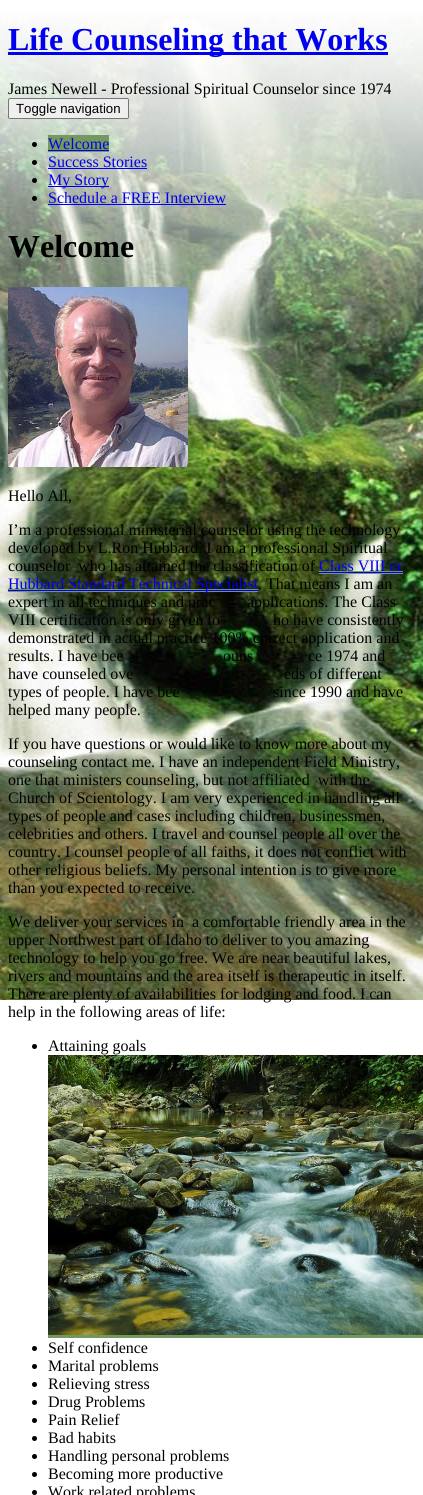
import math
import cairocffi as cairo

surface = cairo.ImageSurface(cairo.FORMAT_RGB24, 423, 1495)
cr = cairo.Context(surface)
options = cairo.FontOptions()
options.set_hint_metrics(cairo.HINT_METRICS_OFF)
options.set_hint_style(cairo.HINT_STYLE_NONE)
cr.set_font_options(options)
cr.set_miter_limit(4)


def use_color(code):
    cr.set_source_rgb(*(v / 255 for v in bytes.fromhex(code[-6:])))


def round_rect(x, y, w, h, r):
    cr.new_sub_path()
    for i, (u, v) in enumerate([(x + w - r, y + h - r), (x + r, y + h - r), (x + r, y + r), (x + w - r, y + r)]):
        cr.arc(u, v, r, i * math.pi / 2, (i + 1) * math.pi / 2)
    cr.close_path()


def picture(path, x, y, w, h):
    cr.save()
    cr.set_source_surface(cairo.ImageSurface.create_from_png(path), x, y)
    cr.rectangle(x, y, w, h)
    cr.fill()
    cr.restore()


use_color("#ffffff")
cr.paint()
picture("img1.png", 0, 13, 423, 987)
use_color("#0000ee")
cr.rectangle(8, 52, 380, 3)
cr.fill()
cr.select_font_face("Liberation Serif", cairo.FONT_SLANT_NORMAL, cairo.FONT_WEIGHT_BOLD)
cr.set_font_size(32)
cr.move_to(8, 50)
cr.show_text("Life Counseling that Works")
cr.select_font_face("Liberation Serif")
cr.set_font_size(16)
use_color("#000000")
cr.move_to(8, 94)
cr.show_text("James Newell - Professional Spiritual Counselor since 1974")
use_color("#efefef")
round_rect(8.5, 98.5, 120, 20, 1.5)
cr.fill_preserve()
use_color("#767676")
cr.set_line_width(1)
cr.stroke()
cr.select_font_face("Liberation Sans")
cr.set_font_size(13.25)
use_color("#000000")
cr.move_to(16, 113)
cr.show_text("Toggle navigation")
cr.new_path()
cr.arc(34.5, 144.5, 2.5, 0, 2 * math.pi)
cr.fill()
use_color("#739960")
cr.rectangle(48, 135, 61, 17)
cr.fill()
cr.select_font_face("Liberation Serif")
cr.set_font_size(16)
use_color("#0000ee")
cr.move_to(48, 149)
cr.show_text("Welcome")
cr.rectangle(48, 150, 61, 1)
cr.fill()
use_color("#000000")
cr.arc(34.5, 162.5, 2.5, 0, 2 * math.pi)
cr.fill()
use_color("#0000ee")
cr.move_to(48, 167)
cr.show_text("Success Stories")
cr.rectangle(48, 168, 99, 1)
cr.fill()
use_color("#000000")
cr.arc(34.5, 180.5, 2.5, 0, 2 * math.pi)
cr.fill()
use_color("#0000ee")
cr.rectangle(48, 186, 61, 1)
cr.fill()
cr.move_to(48, 185)
cr.show_text("My Story")
use_color("#000000")
cr.new_path()
cr.arc(34.5, 198.5, 2.5, 0, 2 * math.pi)
cr.fill()
use_color("#0000ee")
cr.move_to(48, 203)
cr.show_text("Schedule a FREE Interview")
cr.rectangle(48, 204, 178, 1)
cr.fill()
cr.select_font_face("Liberation Serif", cairo.FONT_SLANT_NORMAL, cairo.FONT_WEIGHT_BOLD)
cr.set_font_size(32)
use_color("#000000")
cr.move_to(8, 257)
cr.show_text("Welcome")
picture("img2.png", 8, 287, 180, 180)
cr.select_font_face("Liberation Serif")
cr.set_font_size(16)
cr.move_to(8, 501)
cr.show_text("Hello All,")
cr.move_to(8, 535)
cr.show_text("I’m a professional ministerial counselor using the technology")
cr.move_to(8, 553)
cr.show_text("developed by L.Ron Hubbard. I am a professional Spiritual")
cr.move_to(8, 571)
cr.show_text("counselor  who has attained the classification of")
use_color("#739960")
cr.rectangle(319, 571, 84, 3)
cr.fill()
use_color("#0000ee")
cr.move_to(319, 571)
cr.show_text("Class VIII or")
cr.rectangle(319, 572, 84, 1)
cr.fill()
use_color("#739960")
cr.rectangle(8, 589, 250, 3)
cr.fill()
use_color("#0000ee")
cr.rectangle(8, 590, 250, 1)
cr.fill()
cr.move_to(8, 589)
cr.show_text("Hubbard Standard Technical Specialist")
use_color("#000000")
cr.move_to(258, 589)
cr.show_text(". That means I am an")
cr.move_to(8, 607)
cr.show_text("expert in all techniques and prac")
cr.move_to(247, 607)
cr.show_text("applications. The Class")
cr.move_to(8, 625)
cr.show_text("VIII certification is only given to")
cr.move_to(273, 625)
cr.show_text("ho have consistently")
cr.move_to(8, 643)
cr.show_text("demonstrated in actual practice 100% correct application and")
cr.move_to(8, 661)
cr.show_text("results. I have bee")
cr.move_to(223, 661)
cr.show_text("ouns")
cr.move_to(308, 661)
cr.show_text("ce 1974 and")
cr.move_to(8, 679)
cr.show_text("have counseled ove")
cr.move_to(284, 679)
cr.show_text("eds of different")
cr.move_to(8, 697)
cr.show_text("types of people. I have bee")
cr.move_to(273, 697)
cr.show_text("since 1990 and have")
cr.move_to(8, 715)
cr.show_text("helped many people.")
cr.move_to(8, 749)
cr.show_text("If you have questions or would like to know more about my")
cr.move_to(8, 767)
cr.show_text("counseling contact me. I have an independent Field Ministry,")
cr.move_to(8, 785)
cr.show_text("one that ministers counseling, but not affiliated  with the")
cr.move_to(8, 803)
cr.show_text("Church of Scientology. I am very experienced in handling all")
cr.move_to(8, 821)
cr.show_text("types of people and cases including children, businessmen,")
cr.move_to(8, 839)
cr.show_text("celebrities and others. I travel and counsel people all over the")
cr.move_to(8, 857)
cr.show_text("country. I counsel people of all faiths, it does not conflict with")
cr.move_to(8, 875)
cr.show_text("other religious beliefs. My personal intention is to give more")
cr.move_to(8, 893)
cr.show_text("than you expected to receive.")
cr.move_to(8, 927)
cr.show_text("We deliver your services in  a comfortable friendly area in the")
cr.move_to(8, 945)
cr.show_text("upper Northwest part of Idaho to deliver to you amazing")
cr.move_to(8, 963)
cr.show_text("technology to help you go free. We are near beautiful lakes,")
cr.move_to(8, 981)
cr.show_text("rivers and mountains and the area itself is therapeutic in itself.")
cr.move_to(8, 999)
cr.show_text("There are plenty of availabilities for lodging and food. I can")
cr.move_to(8, 1017)
cr.show_text("help in the following areas of life:")
cr.new_path()
cr.arc(34.5, 1046.5, 2.5, 0, 2 * math.pi)
cr.fill()
cr.move_to(48, 1051)
cr.show_text("Attaining goals")
picture("img3.png", 48, 1055, 375, 280)
use_color("#739960")
cr.rectangle(48, 1335, 375, 3)
cr.fill()
use_color("#000000")
cr.arc(34.5, 1348.5, 2.5, 0, 2 * math.pi)
cr.fill()
cr.move_to(48, 1353)
cr.show_text("Self confidence")
cr.new_path()
cr.arc(34.5, 1366.5, 2.5, 0, 2 * math.pi)
cr.fill()
cr.move_to(48, 1371)
cr.show_text("Marital problems")
cr.new_path()
cr.arc(34.5, 1384.5, 2.5, 0, 2 * math.pi)
cr.fill()
cr.move_to(48, 1389)
cr.show_text("Relieving stress")
cr.new_path()
cr.arc(34.5, 1402.5, 2.5, 0, 2 * math.pi)
cr.fill()
cr.move_to(48, 1407)
cr.show_text("Drug Problems")
cr.new_path()
cr.arc(34.5, 1420.5, 2.5, 0, 2 * math.pi)
cr.fill()
cr.move_to(48, 1425)
cr.show_text("Pain Relief")
cr.new_path()
cr.arc(34.5, 1438.5, 2.5, 0, 2 * math.pi)
cr.fill()
cr.move_to(48, 1443)
cr.show_text("Bad habits")
cr.new_path()
cr.arc(34.5, 1456.5, 2.5, 0, 2 * math.pi)
cr.fill()
cr.move_to(48, 1461)
cr.show_text("Handling personal problems")
cr.new_path()
cr.arc(34.5, 1474.5, 2.5, 0, 2 * math.pi)
cr.fill()
cr.move_to(48, 1479)
cr.show_text("Becoming more productive")
cr.new_path()
cr.arc(34.5, 1492.5, 2.5, 0, 2 * math.pi)
cr.fill()
cr.move_to(48, 1497)
cr.show_text("Work related problems")
surface.write_to_png("result.png")
